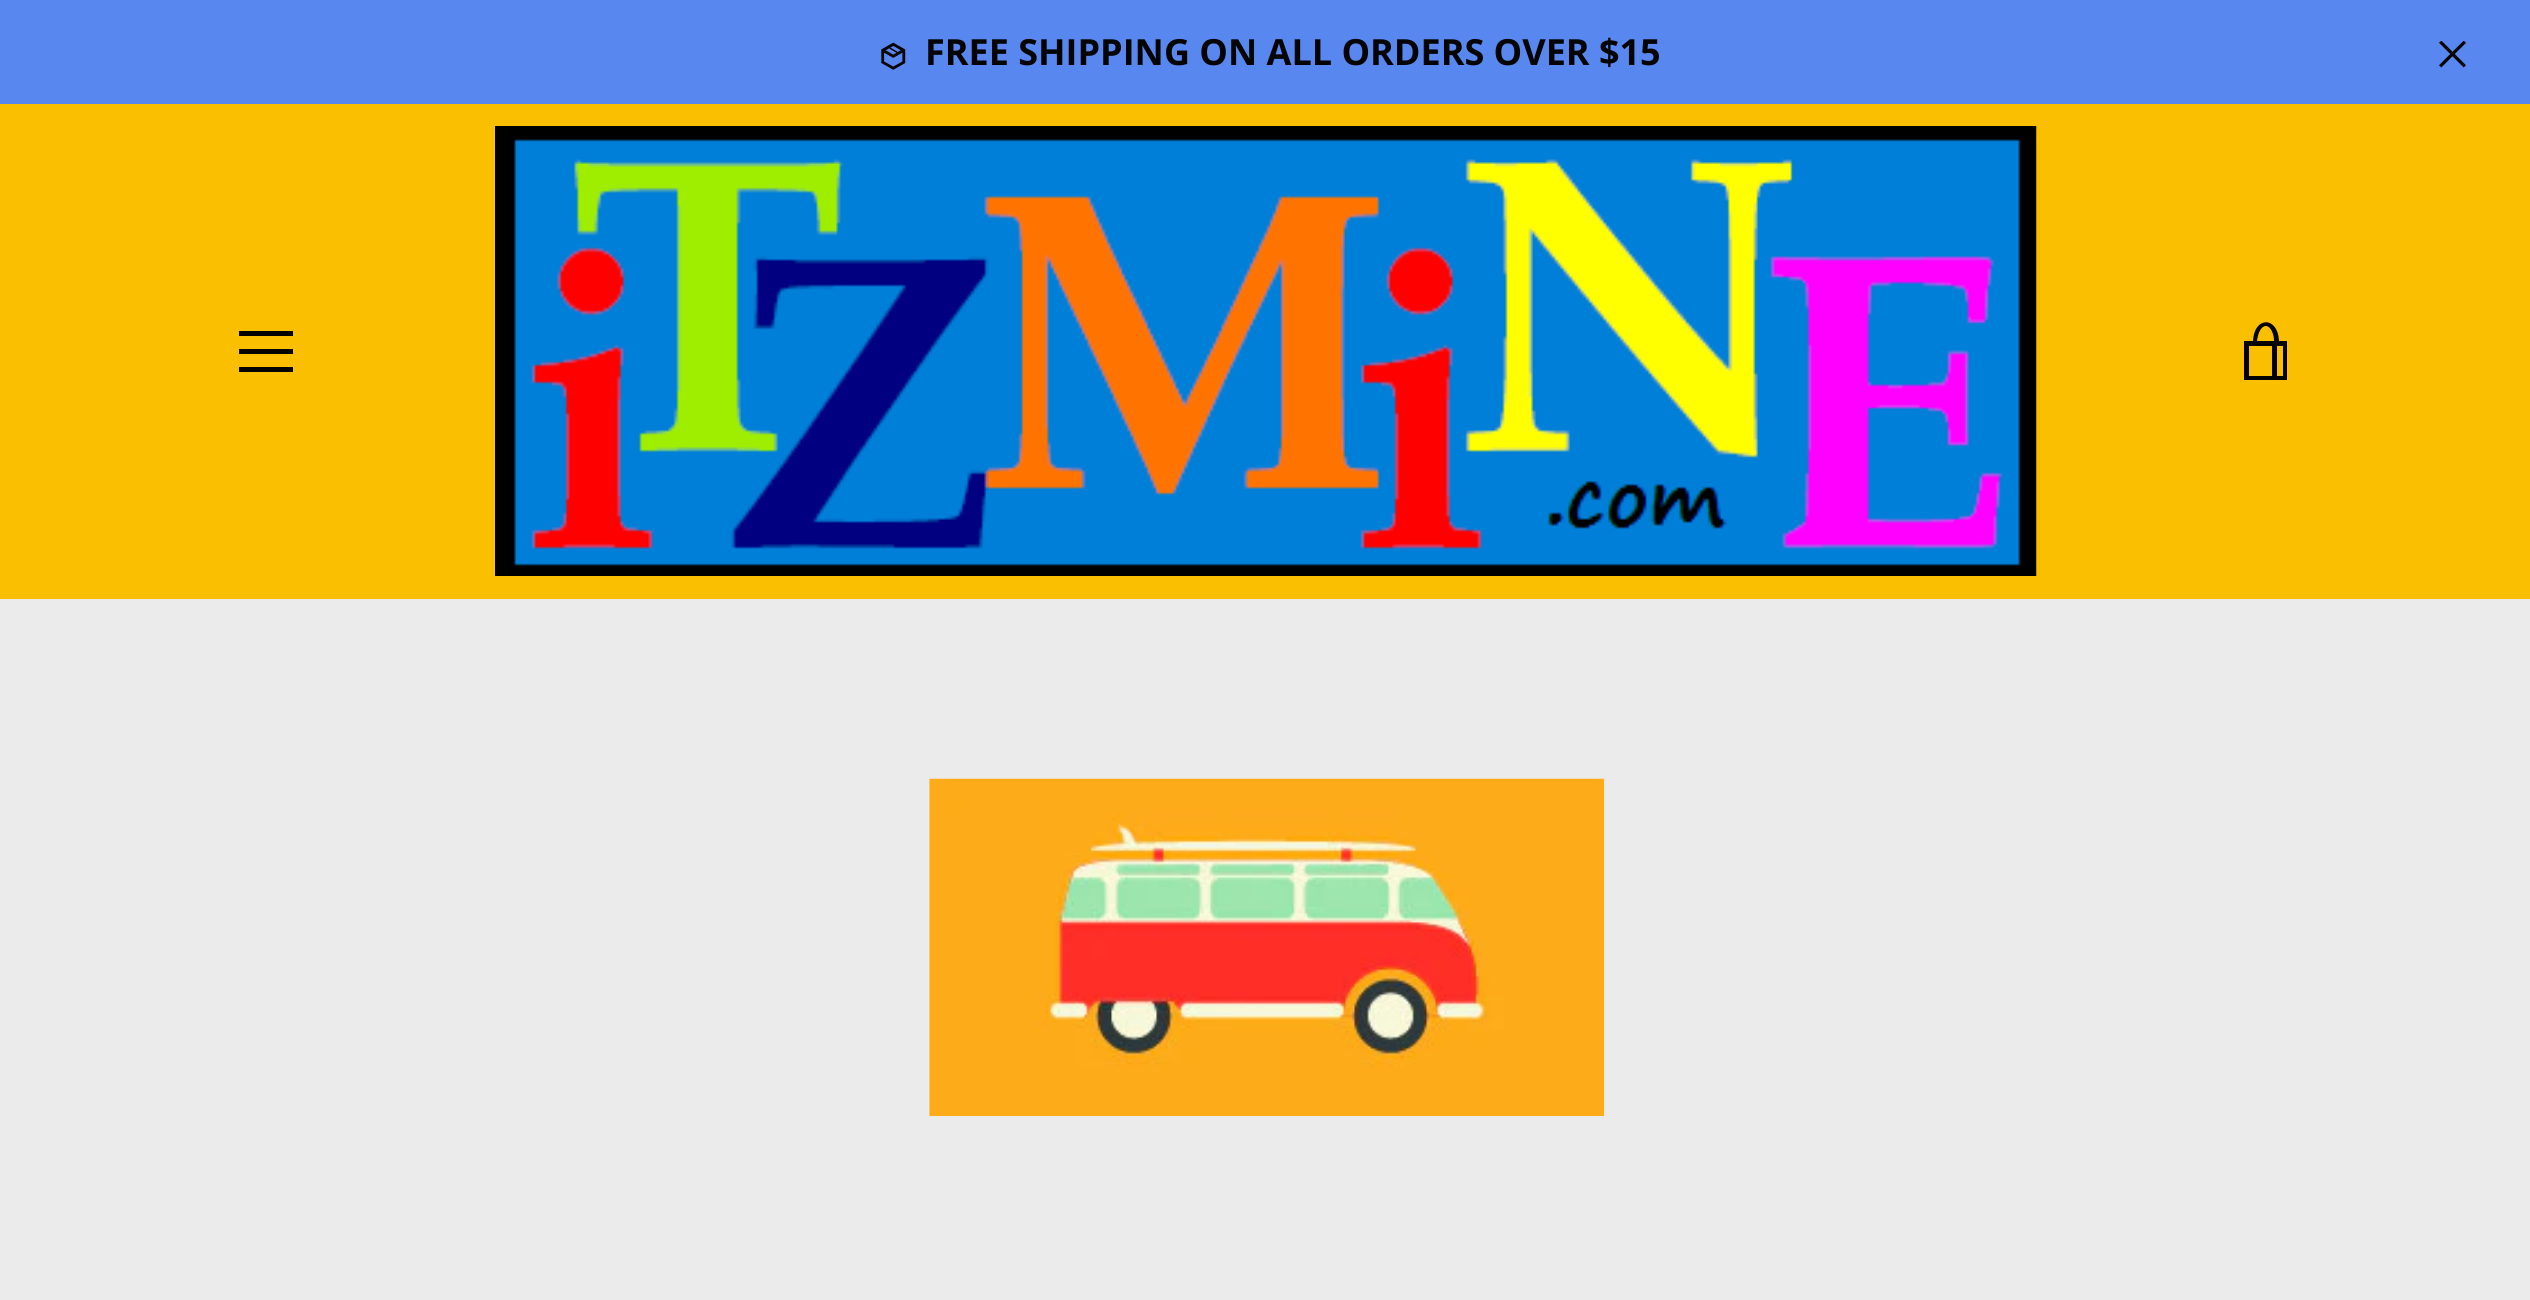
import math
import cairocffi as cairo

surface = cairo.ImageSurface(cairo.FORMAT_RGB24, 2530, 1300)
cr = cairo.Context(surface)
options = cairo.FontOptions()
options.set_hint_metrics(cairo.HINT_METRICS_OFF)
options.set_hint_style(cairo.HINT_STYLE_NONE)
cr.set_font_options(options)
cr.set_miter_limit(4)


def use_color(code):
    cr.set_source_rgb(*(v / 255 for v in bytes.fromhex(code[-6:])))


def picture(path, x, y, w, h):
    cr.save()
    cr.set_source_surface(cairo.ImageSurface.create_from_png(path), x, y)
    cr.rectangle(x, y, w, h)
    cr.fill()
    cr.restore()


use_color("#ebebeb")
cr.paint()
use_color("#fac000")
cr.rectangle(0, 104, 2530, 495)
cr.fill()
use_color("#5887ef")
cr.rectangle(0, 0, 2530, 104)
cr.fill()
picture("img1.png", 881, 42, 25, 28)
cr.select_font_face("Open Sans", cairo.FONT_SLANT_NORMAL, cairo.FONT_WEIGHT_BOLD)
cr.set_font_size(36)
use_color("#040404")
cr.move_to(925, 65)
cr.show_text("FREE SHIPPING ON ALL ORDERS OVER $15")
picture("img2.png", 2439, 41, 27, 27)
use_color("#030303")
cr.rectangle(239, 331, 54, 5)
cr.fill()
cr.rectangle(239, 349, 54, 5)
cr.fill()
cr.rectangle(239, 367, 54, 5)
cr.fill()
picture("img3.png", 495, 126, 1542, 450)
cr.new_path()
cr.move_to(2279, 341)
cr.curve_to(2278, 316, 2254, 316, 2253, 341)
cr.line_to(2244, 341)
cr.line_to(2244, 380)
cr.line_to(2287, 380)
cr.line_to(2287, 341)
cr.close_path()
cr.move_to(2266, 326)
cr.curve_to(2270, 326, 2274, 333, 2274, 341)
cr.line_to(2257, 341)
cr.curve_to(2258, 333, 2261, 326, 2266, 326)
cr.close_path()
cr.move_to(2249, 376)
cr.line_to(2249, 346)
cr.line_to(2272, 346)
cr.line_to(2272, 376)
cr.close_path()
cr.move_to(2283, 376)
cr.line_to(2277, 376)
cr.line_to(2277, 346)
cr.line_to(2283, 346)
cr.close_path()
cr.fill()
picture("img4.png", 929, 778, 676, 338)
surface.write_to_png("result.png")
